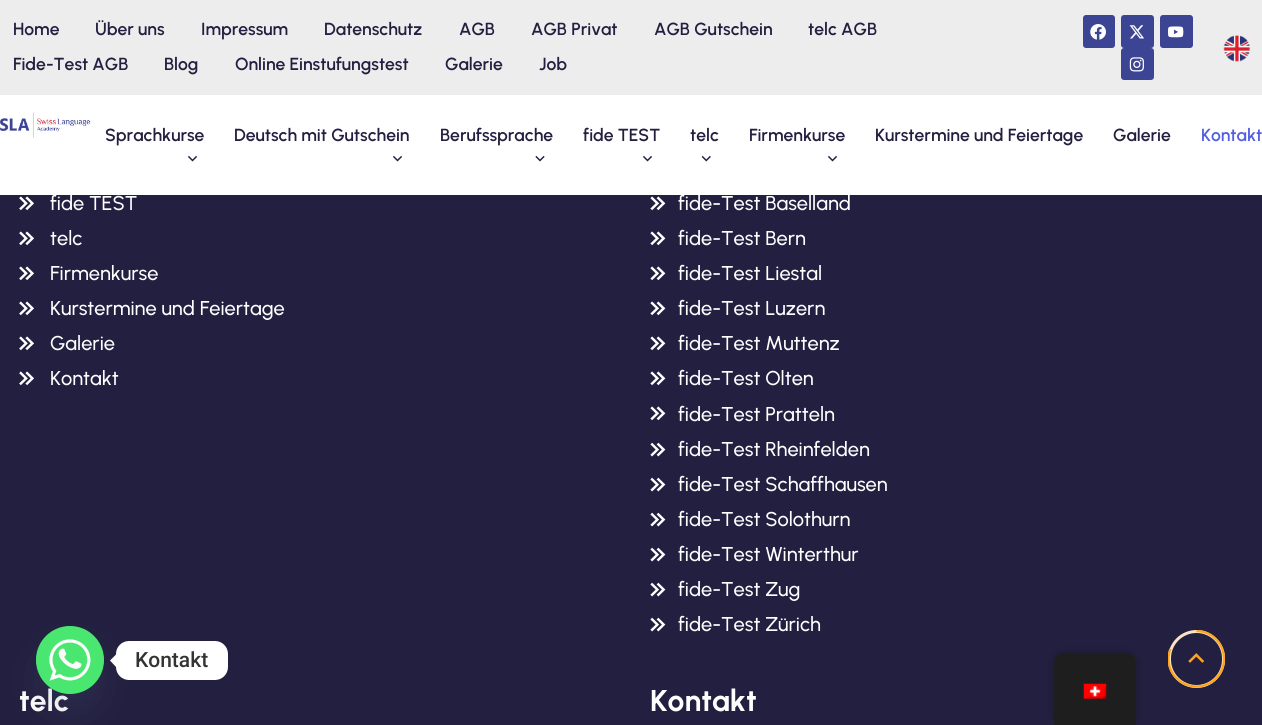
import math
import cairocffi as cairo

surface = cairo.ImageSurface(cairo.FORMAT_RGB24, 1262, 725)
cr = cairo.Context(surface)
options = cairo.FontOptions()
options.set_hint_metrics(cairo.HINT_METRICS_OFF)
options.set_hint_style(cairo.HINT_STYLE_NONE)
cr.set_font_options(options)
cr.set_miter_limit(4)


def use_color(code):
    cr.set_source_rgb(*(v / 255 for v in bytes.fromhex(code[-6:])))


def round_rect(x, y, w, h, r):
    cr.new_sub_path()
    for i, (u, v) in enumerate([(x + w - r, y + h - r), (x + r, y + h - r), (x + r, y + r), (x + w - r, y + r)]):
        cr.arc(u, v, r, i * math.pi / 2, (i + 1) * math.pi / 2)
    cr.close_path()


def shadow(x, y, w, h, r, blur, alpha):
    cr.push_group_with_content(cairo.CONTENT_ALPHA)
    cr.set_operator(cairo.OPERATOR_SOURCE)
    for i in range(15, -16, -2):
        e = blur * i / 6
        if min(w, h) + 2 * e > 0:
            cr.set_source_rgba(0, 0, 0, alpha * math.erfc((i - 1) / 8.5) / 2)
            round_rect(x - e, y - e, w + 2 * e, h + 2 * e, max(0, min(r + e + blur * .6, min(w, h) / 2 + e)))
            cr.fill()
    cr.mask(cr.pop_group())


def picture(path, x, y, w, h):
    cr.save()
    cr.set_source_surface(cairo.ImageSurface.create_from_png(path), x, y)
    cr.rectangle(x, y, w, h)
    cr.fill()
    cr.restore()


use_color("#231f40")
cr.paint()
use_color("#ffffff")
cr.rectangle(0, 95, 1262, 100)
cr.fill()
use_color("#ededed")
cr.rectangle(0, 0, 1262, 95)
cr.fill()
cr.select_font_face("Urbanist SemiBold")
cr.set_font_size(17.5)
use_color("#231f40")
cr.move_to(13, 35)
cr.show_text("Home")
cr.move_to(95, 35)
cr.show_text("Über uns")
cr.move_to(201, 35)
cr.show_text("Impressum")
cr.move_to(324, 35)
cr.show_text("Datenschutz")
cr.move_to(459, 35)
cr.show_text("AGB")
cr.move_to(531, 35)
cr.show_text("AGB Privat")
cr.move_to(654, 35)
cr.show_text("AGB Gutschein")
cr.move_to(808, 35)
cr.show_text("telc AGB")
cr.move_to(13, 70)
cr.show_text("Fide-Test AGB")
cr.move_to(164, 70)
cr.show_text("Blog")
cr.move_to(235, 70)
cr.show_text("Online Einstufungstest")
cr.move_to(445, 70)
cr.show_text("Galerie")
cr.move_to(539, 70)
cr.show_text("Job")
use_color("#3c4494")
round_rect(1083, 15, 32, 33, 3)
cr.fill()
picture("img1.png", 1090, 24, 16, 16)
round_rect(1121, 15, 33, 33, 3)
cr.fill()
picture("img2.png", 1129, 25, 16, 14)
round_rect(1160, 15, 33, 33, 3)
cr.fill()
picture("img3.png", 1168, 26, 16, 12)
round_rect(1121, 48, 33, 32, 3)
cr.fill()
picture("img4.png", 1129, 57, 15, 15)
picture("img5.png", 1223, 35, 27, 27)
picture("img6.png", 0, 112, 91, 26)
use_color("#231f40")
cr.move_to(105, 141)
cr.show_text("Sprachkurse")
picture("img7.png", 187, 155, 11, 7)
cr.move_to(234, 141)
cr.show_text("Deutsch mit Gutschein")
picture("img7.png", 392, 155, 11, 7)
cr.move_to(440, 141)
cr.show_text("Berufssprache")
picture("img8.png", 535, 155, 10, 7)
cr.move_to(583, 141)
cr.show_text("fide TEST")
picture("img7.png", 642, 155, 11, 7)
cr.move_to(690, 141)
cr.show_text("telc")
picture("img9.png", 701, 155, 10, 7)
cr.move_to(749, 141)
cr.show_text("Firmenkurse")
picture("img7.png", 827, 155, 11, 7)
cr.move_to(875, 141)
cr.show_text("Kurstermine und Feiertage")
cr.move_to(1113, 141)
cr.show_text("Galerie")
use_color("#525fe1")
cr.move_to(1201, 141)
cr.show_text("Kontakt")
picture("img10.png", 19, 196, 15, 15)
cr.select_font_face("Urbanist Medium")
cr.set_font_size(20)
use_color("#ffffff")
cr.move_to(50, 210)
cr.show_text("fide TEST")
picture("img10.png", 19, 231, 15, 15)
cr.move_to(50, 245)
cr.show_text("telc")
picture("img10.png", 19, 266, 15, 15)
cr.move_to(50, 280)
cr.show_text("Firmenkurse")
picture("img10.png", 19, 301, 15, 15)
cr.move_to(50, 315)
cr.show_text("Kurstermine und Feiertage")
picture("img10.png", 19, 336, 15, 15)
cr.move_to(50, 350)
cr.show_text("Galerie")
picture("img10.png", 19, 371, 15, 15)
cr.move_to(50, 385)
cr.show_text("Kontakt")
picture("img11.png", 650, 196, 16, 15)
cr.move_to(678, 210)
cr.show_text("fide-Test Baselland")
picture("img11.png", 650, 231, 16, 15)
cr.move_to(678, 245)
cr.show_text("fide-Test Bern")
picture("img11.png", 650, 266, 16, 15)
cr.move_to(678, 280)
cr.show_text("fide-Test Liestal")
picture("img11.png", 650, 301, 16, 15)
cr.move_to(678, 315)
cr.show_text("fide-Test Luzern")
picture("img11.png", 650, 336, 16, 15)
cr.move_to(678, 350)
cr.show_text("fide-Test Muttenz")
picture("img11.png", 650, 371, 16, 15)
cr.move_to(678, 385)
cr.show_text("fide-Test Olten")
picture("img11.png", 650, 406, 16, 15)
cr.move_to(678, 421)
cr.show_text("fide-Test Pratteln")
picture("img12.png", 650, 442, 16, 15)
cr.move_to(678, 456)
cr.show_text("fide-Test Rheinfelden")
picture("img12.png", 650, 477, 16, 15)
cr.move_to(678, 491)
cr.show_text("fide-Test Schaffhausen")
picture("img12.png", 650, 512, 16, 15)
cr.move_to(678, 526)
cr.show_text("fide-Test Solothurn")
picture("img12.png", 650, 547, 16, 15)
cr.move_to(678, 561)
cr.show_text("fide-Test Winterthur")
picture("img12.png", 650, 582, 16, 15)
cr.move_to(678, 596)
cr.show_text("fide-Test Zug")
picture("img12.png", 650, 617, 16, 15)
cr.move_to(678, 631)
cr.show_text("fide-Test Zürich")
cr.select_font_face("Urbanist", cairo.FONT_SLANT_NORMAL, cairo.FONT_WEIGHT_BOLD)
cr.set_font_size(30)
cr.move_to(19, 711)
cr.show_text("telc")
cr.move_to(650, 711)
cr.show_text("Kontakt")
round_rect(1169.5, 631.5, 54, 55, 27)
use_color("#f8e3c3")
cr.set_line_width(3)
cr.stroke()
cr.save()
cr.rectangle(1168, 630, 57, 58)
cr.clip()
cr.new_path()
cr.move_to(1196.5, 631)
cr.curve_to(1211.5, 631, 1224, 643.5, 1224, 659)
cr.curve_to(1224, 674, 1211.5, 686.5, 1196.5, 686.5)
cr.curve_to(1181, 686.5, 1168.5, 674, 1168.5, 659)
cr.curve_to(1168.5, 655.5, 1169, 652, 1170.5, 649)
use_color("#ffa41b")
cr.set_line_width(2.3)
cr.stroke()
cr.restore()
picture("img13.png", 1188, 653, 17, 10)
use_color("#49687e")
shadow(36, 646, 68, 68, 34, 15, 0.16)
use_color("#49e670")
cr.arc(70, 660, 34, 0, 2 * math.pi)
cr.fill()
picture("img14.png", 36, 626, 68, 68)
use_color("#ffffff")
round_rect(116, 641, 112, 39, 13)
cr.fill()
cr.new_path()
cr.move_to(116, 654.5)
cr.line_to(116, 667)
cr.line_to(110, 660.5)
cr.close_path()
cr.fill()
cr.select_font_face("Roboto Medium")
cr.set_font_size(21)
use_color("#333333")
cr.move_to(135, 667)
cr.show_text("Kontakt")
use_color("#000000")
shadow(1054, 653, 82, 72, 10, 5, 0.25)
use_color("#1e1e1e")
cr.new_path()
cr.move_to(1064, 653)
cr.line_to(1126, 653)
cr.curve_to(1131.5, 653, 1136, 657.5, 1136, 663)
cr.line_to(1136, 725)
cr.line_to(1054, 725)
cr.line_to(1054, 663)
cr.curve_to(1054, 657.5, 1058.5, 653, 1064, 653)
cr.close_path()
cr.fill()
picture("img15.png", 1083, 683, 24, 16)
surface.write_to_png("result.png")
